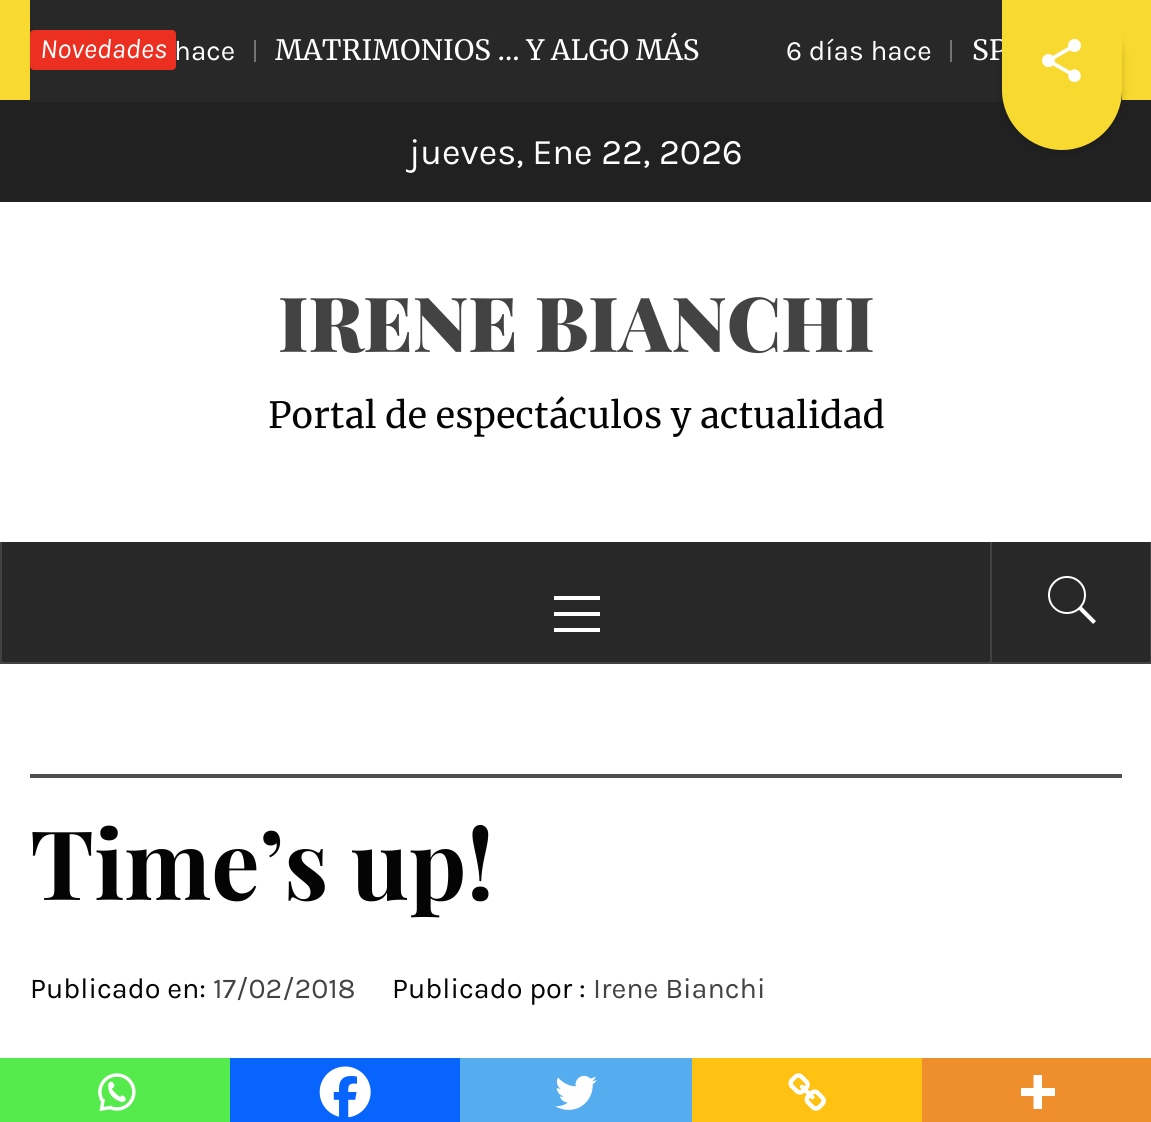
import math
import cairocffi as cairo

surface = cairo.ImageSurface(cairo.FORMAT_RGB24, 1151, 1122)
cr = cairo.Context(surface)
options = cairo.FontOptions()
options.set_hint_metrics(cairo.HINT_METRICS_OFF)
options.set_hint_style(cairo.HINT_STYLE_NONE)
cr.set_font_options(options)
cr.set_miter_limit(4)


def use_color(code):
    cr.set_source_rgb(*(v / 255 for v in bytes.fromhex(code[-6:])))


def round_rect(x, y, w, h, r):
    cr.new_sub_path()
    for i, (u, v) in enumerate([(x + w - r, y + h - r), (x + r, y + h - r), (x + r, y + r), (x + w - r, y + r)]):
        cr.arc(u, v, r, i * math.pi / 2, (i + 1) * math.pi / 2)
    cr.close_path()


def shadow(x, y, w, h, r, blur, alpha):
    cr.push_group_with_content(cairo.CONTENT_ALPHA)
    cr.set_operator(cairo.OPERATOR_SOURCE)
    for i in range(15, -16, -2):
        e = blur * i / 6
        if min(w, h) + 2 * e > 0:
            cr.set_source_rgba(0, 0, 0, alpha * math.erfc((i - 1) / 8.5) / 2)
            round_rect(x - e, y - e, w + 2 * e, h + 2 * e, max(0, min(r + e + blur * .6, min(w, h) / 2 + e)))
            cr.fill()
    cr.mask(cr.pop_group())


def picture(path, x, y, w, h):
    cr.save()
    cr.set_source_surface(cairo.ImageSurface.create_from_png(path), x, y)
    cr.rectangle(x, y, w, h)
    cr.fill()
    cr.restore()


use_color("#ffffff")
cr.paint()
use_color("#f8d92f")
cr.rectangle(0, 0, 1151, 100)
cr.fill()
use_color("#212121")
cr.rectangle(0, 100, 1151, 102)
cr.fill()
use_color("#282828")
cr.rectangle(30, 0, 1092, 102)
cr.fill()
use_color("#eb2f21")
round_rect(30, 30, 146, 40, 4)
cr.fill()
cr.select_font_face("Karla", cairo.FONT_SLANT_ITALIC)
cr.set_font_size(28)
use_color("#ffffff")
cr.move_to(40, 58)
cr.show_text("Novedades")
cr.select_font_face("Karla")
cr.move_to(174, 60)
cr.show_text("hace")
use_color("#727272")
cr.rectangle(254, 40, 2, 22)
cr.fill()
cr.select_font_face("Merriweather")
use_color("#ffffff")
cr.move_to(275, 60)
cr.show_text("MATRIMONIOS … Y ALGO MÁS")
cr.select_font_face("Karla")
cr.move_to(786, 60)
cr.show_text("6 días hace")
use_color("#727272")
cr.rectangle(950, 40, 2, 22)
cr.fill()
cr.select_font_face("Merriweather")
use_color("#ffffff")
cr.move_to(972, 60)
cr.show_text("SP")
use_color("#000000")
shadow(1002, 2, 120, 150, 60, 4, 0.2)
use_color("#f8d92f")
cr.new_path()
cr.move_to(1002, 0)
cr.line_to(1122, 0)
cr.line_to(1122, 90)
cr.curve_to(1122, 123, 1095, 150, 1062, 150)
cr.curve_to(1029, 150, 1002, 123, 1002, 90)
cr.close_path()
cr.fill()
picture("img1.png", 1042, 39, 39, 43)
cr.select_font_face("Karla")
cr.set_font_size(36)
use_color("#ffffff")
cr.move_to(409, 164)
cr.show_text("jueves, Ene 22, 2026")
cr.select_font_face("Playfair Display Black")
cr.set_font_size(76)
use_color("#434343")
cr.move_to(278, 352)
cr.show_text("IRENE BIANCHI")
cr.select_font_face("Merriweather")
cr.set_font_size(36)
use_color("#040404")
cr.move_to(268, 428)
cr.show_text("Portal de espectáculos y actualidad")
use_color("#282828")
cr.rectangle(2, 542, 1148, 120)
cr.fill()
use_color("#424242")
cr.rectangle(0, 662, 1151, 2)
cr.fill()
cr.rectangle(1150, 542, 1, 120)
cr.fill()
cr.rectangle(0, 542, 2, 120)
cr.fill()
use_color("#ffffff")
cr.rectangle(554, 612, 46, 4)
cr.fill()
cr.rectangle(554, 596, 46, 4)
cr.fill()
cr.rectangle(554, 628, 46, 4)
cr.fill()
use_color("#424242")
cr.rectangle(990, 542, 2, 120)
cr.fill()
picture("img2.png", 1048, 576, 48, 48)
use_color("#4e4e4e")
cr.rectangle(30, 774, 1092, 4)
cr.fill()
cr.select_font_face("Playfair Display", cairo.FONT_SLANT_NORMAL, cairo.FONT_WEIGHT_BOLD)
cr.set_font_size(96)
use_color("#040404")
cr.move_to(30, 900)
cr.show_text("Time’s up!")
cr.select_font_face("Karla")
cr.set_font_size(28.75)
cr.move_to(30, 998)
cr.show_text("Publicado en:")
use_color("#434343")
cr.move_to(213, 998)
cr.show_text("17/02/2018")
use_color("#040404")
cr.move_to(392, 998)
cr.show_text("Publicado por :")
use_color("#434343")
cr.move_to(593, 998)
cr.show_text("Irene Bianchi")
use_color("#55eb4c")
cr.rectangle(0, 1058, 230, 64)
cr.fill()
picture("img3.png", 98, 1073, 38, 38)
use_color("#0765fe")
cr.rectangle(230, 1058, 230, 64)
cr.fill()
picture("img4.png", 319, 1066, 52, 52)
use_color("#55acee")
cr.rectangle(460, 1058, 232, 64)
cr.fill()
picture("img5.png", 555, 1075, 42, 35)
use_color("#ffc112")
cr.rectangle(692, 1058, 230, 64)
cr.fill()
picture("img6.png", 788, 1073, 38, 38)
use_color("#ee8e2d")
cr.rectangle(922, 1058, 229, 64)
cr.fill()
use_color("#ffffff")
cr.set_fill_rule(cairo.FILL_RULE_EVEN_ODD)
cr.new_path()
cr.move_to(1042, 1088)
cr.line_to(1042, 1075)
cr.line_to(1033.5, 1075)
cr.line_to(1033.5, 1088)
cr.line_to(1021, 1088)
cr.line_to(1021, 1096)
cr.line_to(1033.5, 1096)
cr.line_to(1033.5, 1109)
cr.line_to(1042, 1109)
cr.line_to(1042, 1096)
cr.line_to(1055, 1096)
cr.line_to(1055, 1088)
cr.close_path()
cr.fill()
surface.write_to_png("result.png")
